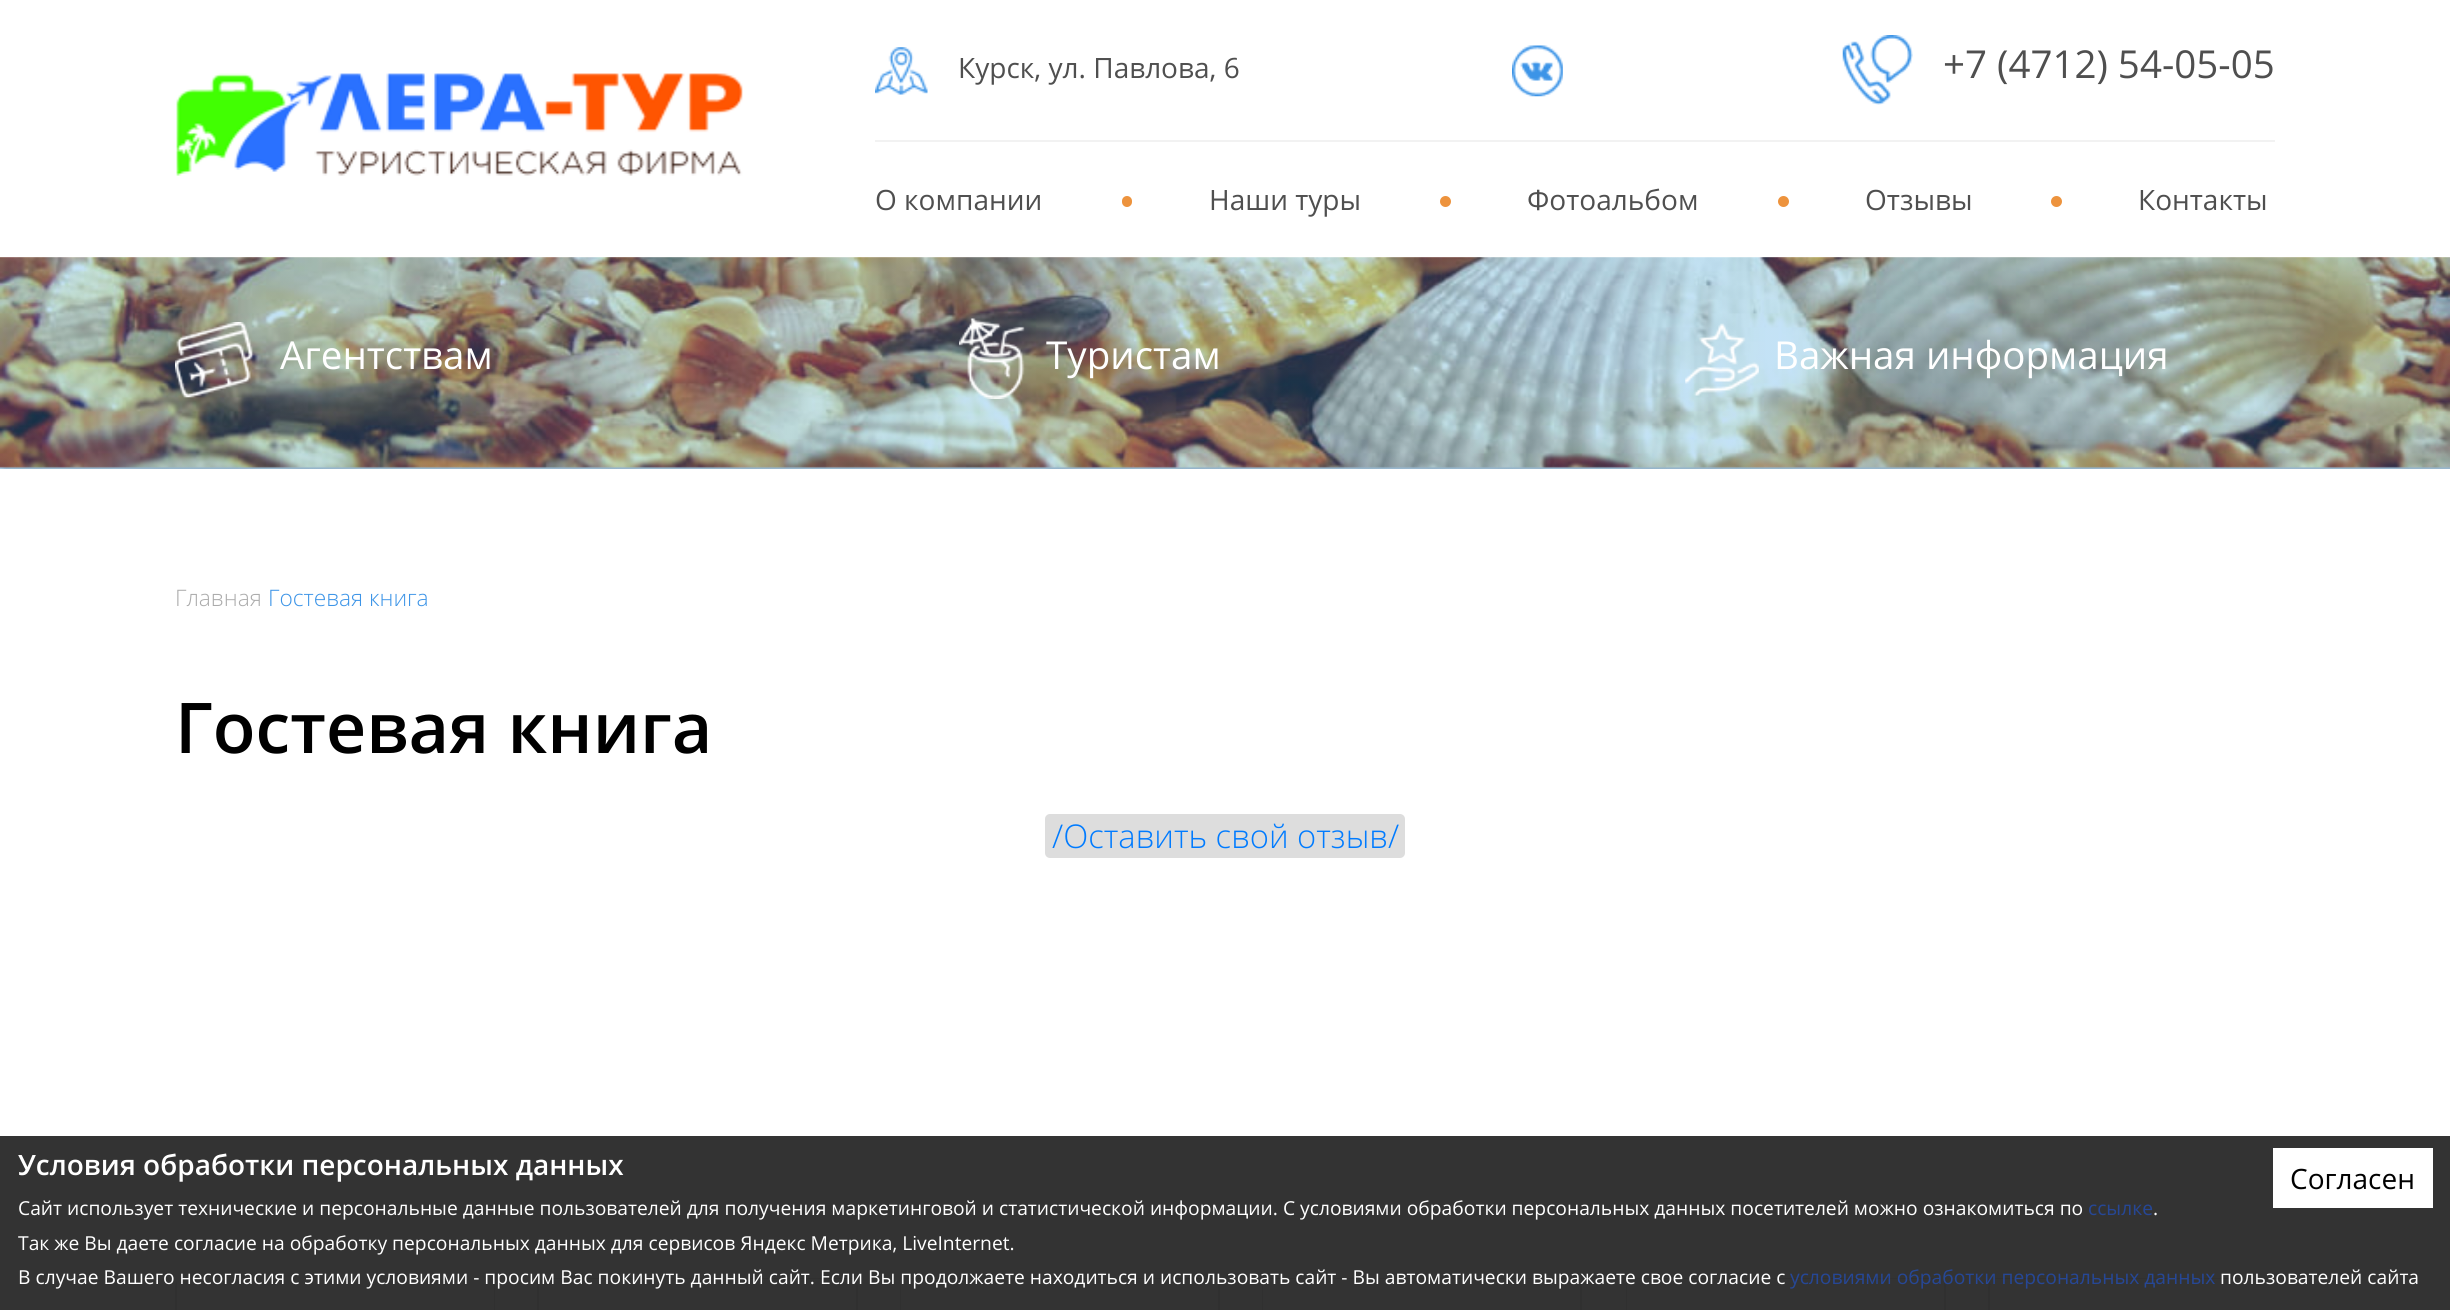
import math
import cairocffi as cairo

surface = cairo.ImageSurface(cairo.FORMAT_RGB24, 2450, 1310)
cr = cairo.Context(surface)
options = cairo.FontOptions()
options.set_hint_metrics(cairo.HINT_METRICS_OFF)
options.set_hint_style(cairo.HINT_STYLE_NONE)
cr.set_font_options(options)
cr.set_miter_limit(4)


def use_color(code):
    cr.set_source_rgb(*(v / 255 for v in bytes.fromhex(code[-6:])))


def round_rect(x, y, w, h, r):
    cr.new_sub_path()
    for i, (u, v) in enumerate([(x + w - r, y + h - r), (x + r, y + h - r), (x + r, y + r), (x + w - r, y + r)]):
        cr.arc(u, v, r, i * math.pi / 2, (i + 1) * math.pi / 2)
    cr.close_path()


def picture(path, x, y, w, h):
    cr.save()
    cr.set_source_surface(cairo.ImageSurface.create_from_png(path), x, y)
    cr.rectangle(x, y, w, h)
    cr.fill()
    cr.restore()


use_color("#ffffff")
cr.paint()
use_color("#333333")
cr.rectangle(0, 1136, 2450, 174)
cr.fill()
picture("img1.png", 176, 73, 567, 103)
use_color("#f2f2f2")
cr.rectangle(875, 140, 1400, 2)
cr.fill()
picture("img2.png", 875, 47, 53, 48)
cr.select_font_face("Open Sans")
cr.set_font_size(28)
use_color("#4f4f4f")
cr.move_to(958, 78)
cr.show_text("Курск, ул. Павлова, 6")
picture("img3.png", 1512, 45, 51, 52)
picture("img4.png", 1842, 35, 71, 70)
cr.set_font_size(38.5)
cr.move_to(1943, 78)
cr.show_text("+7 (4712) 54-05-05")
cr.set_font_size(28)
cr.move_to(875, 210)
cr.show_text("О компании")
use_color("#ed933d")
round_rect(1122, 196, 10, 11, 5)
cr.fill()
use_color("#4f4f4f")
cr.move_to(1209, 210)
cr.show_text("Наши туры")
use_color("#ed933d")
cr.new_path()
cr.arc(1445.5, 201.5, 5.5, 0, 2 * math.pi)
cr.fill()
use_color("#4f4f4f")
cr.move_to(1527, 210)
cr.show_text("Фотоальбом")
use_color("#ed933d")
cr.new_path()
cr.arc(1783.5, 201.5, 5.5, 0, 2 * math.pi)
cr.fill()
use_color("#4f4f4f")
cr.move_to(1865, 210)
cr.show_text("Отзывы")
use_color("#ed933d")
cr.new_path()
cr.arc(2056.5, 201.5, 5.5, 0, 2 * math.pi)
cr.fill()
use_color("#4f4f4f")
cr.move_to(2138, 210)
cr.show_text("Контакты")
picture("img5.png", 0, 257, 2450, 212)
picture("img6.png", 175, 322, 79, 76)
cr.set_font_size(38.5)
use_color("#ffffff")
cr.move_to(280, 369)
cr.show_text("Агентствам")
picture("img7.png", 959, 318, 66, 81)
cr.move_to(1046, 369)
cr.show_text("Туристам")
picture("img8.png", 1685, 323, 74, 73)
cr.move_to(1774, 369)
cr.show_text("Важная информация")
cr.select_font_face("Open Sans Light")
cr.set_font_size(22.75)
use_color("#ababab")
cr.move_to(175, 606)
cr.show_text("Главная")
use_color("#3c94e7")
cr.move_to(268, 606)
cr.show_text("Гостевая книга")
cr.select_font_face("Open Sans SemiBold")
cr.set_font_size(70)
use_color("#000000")
cr.move_to(175, 753)
cr.show_text("Гостевая книга")
use_color("#dddddd")
round_rect(1045, 814, 360, 44, 5)
cr.fill()
cr.select_font_face("Open Sans Light")
cr.set_font_size(32.75)
use_color("#007bff")
cr.move_to(1052, 848)
cr.show_text("/Оставить свой отзыв/")
cr.select_font_face("Open Sans SemiBold")
cr.set_font_size(28)
use_color("#ffffff")
cr.move_to(18, 1175)
cr.show_text("Условия обработки персональных данных")
cr.rectangle(2273, 1148, 160, 60)
cr.fill()
cr.select_font_face("Open Sans")
use_color("#000000")
cr.move_to(2290, 1189)
cr.show_text("Согласен")
cr.set_font_size(19.25)
use_color("#ffffff")
cr.move_to(18, 1215)
cr.show_text("Сайт использует технические и персональные данные пользователей для получения маркетинговой и статистической информации. С условиями обработки персональных данных посетителей можно ознакомиться по")
use_color("#264796")
cr.move_to(2088, 1215)
cr.show_text("ссылке")
use_color("#ffffff")
cr.move_to(2153, 1215)
cr.show_text(".")
cr.move_to(18, 1250)
cr.show_text("Так же Вы даете согласие на обработку персональных данных для сервисов Яндекс Метрика, LiveInternet.")
round_rect(176, 1279, 318, 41, 8)
use_color("#303030")
cr.stroke()
use_color("#333333")
cr.rectangle(177, 1278, 317, 32)
cr.fill()
round_rect(538, 1279, 319, 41, 8)
use_color("#303030")
cr.stroke()
use_color("#333333")
cr.rectangle(539, 1279, 317, 5)
cr.fill()
round_rect(901, 1279, 318, 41, 8)
use_color("#303030")
cr.stroke()
use_color("#333333")
cr.rectangle(901, 1279, 317, 31)
cr.fill()
round_rect(1263, 1279, 318, 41, 8)
use_color("#303030")
cr.stroke()
use_color("#333333")
cr.rectangle(1263, 1279, 317, 31)
cr.fill()
round_rect(1627, 1279, 318, 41, 8)
use_color("#303030")
cr.stroke()
use_color("#333333")
cr.rectangle(1627, 1279, 317, 31)
cr.fill()
use_color("#ffffff")
cr.move_to(18, 1284)
cr.show_text("В случае Вашего несогласия с этими условиями - просим Вас покинуть данный сайт. Если Вы продолжаете находиться и использовать сайт - Вы автоматически выражаете свое согласие с")
cr.save()
cr.rectangle(175, 1278, 2100, 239)
cr.clip()
round_rect(1989, 1279, 318, 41, 8)
use_color("#303030")
cr.stroke()
cr.restore()
use_color("#333333")
cr.rectangle(1990, 1279, 285, 5)
cr.fill()
use_color("#264796")
cr.move_to(1790, 1284)
cr.show_text("условиями обработки персональных данных")
use_color("#ffffff")
cr.move_to(2220, 1284)
cr.show_text("пользователей сайта")
surface.write_to_png("result.png")
